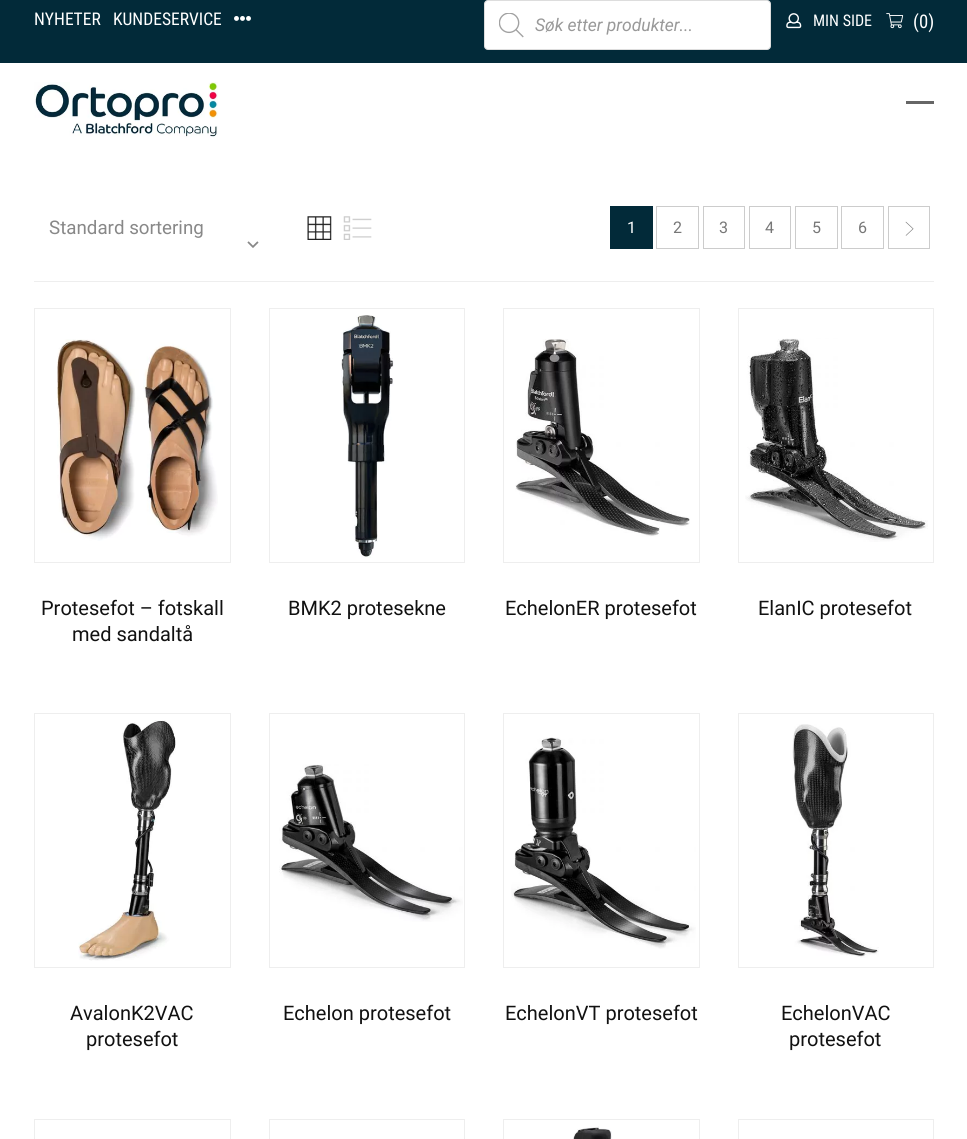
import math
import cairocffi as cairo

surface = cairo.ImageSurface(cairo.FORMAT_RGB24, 967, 1139)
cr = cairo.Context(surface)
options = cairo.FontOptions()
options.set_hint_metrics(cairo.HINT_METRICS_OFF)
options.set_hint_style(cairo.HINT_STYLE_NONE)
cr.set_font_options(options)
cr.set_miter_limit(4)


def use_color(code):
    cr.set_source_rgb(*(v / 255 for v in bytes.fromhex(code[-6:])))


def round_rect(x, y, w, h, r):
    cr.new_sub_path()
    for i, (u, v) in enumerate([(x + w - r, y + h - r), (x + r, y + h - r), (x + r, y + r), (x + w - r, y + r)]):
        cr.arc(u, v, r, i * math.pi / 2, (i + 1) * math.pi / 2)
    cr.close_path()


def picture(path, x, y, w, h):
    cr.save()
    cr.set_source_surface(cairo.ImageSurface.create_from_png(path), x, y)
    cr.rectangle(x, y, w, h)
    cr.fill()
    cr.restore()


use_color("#ffffff")
cr.paint()
use_color("#022a39")
cr.rectangle(0, 0, 967, 63)
cr.fill()
cr.select_font_face("Roboto Condensed")
cr.set_font_size(17.5)
use_color("#ffffff")
cr.move_to(34, 25)
cr.show_text("NYHETER")
cr.move_to(113, 25)
cr.show_text("KUNDESERVICE")
picture("img1.png", 234, 16, 17, 5)
round_rect(484.5, 0.5, 286, 49, 3.5)
cr.fill_preserve()
use_color("#dddddd")
cr.set_line_width(1)
cr.stroke()
picture("img2.png", 499, 13, 25, 25)
cr.select_font_face("Roboto", cairo.FONT_SLANT_ITALIC)
use_color("#999999")
cr.move_to(535, 31)
cr.show_text("Søk etter produkter...")
picture("img3.png", 786, 13, 16, 16)
cr.select_font_face("Roboto Condensed")
cr.set_font_size(16)
use_color("#ffffff")
cr.move_to(813, 26)
cr.show_text("MIN SIDE")
picture("img4.png", 886, 13, 18, 16)
cr.set_font_size(18.75)
cr.move_to(913, 28)
cr.show_text("(0)")
picture("img5.png", 34, 82, 184, 56)
use_color("#666666")
cr.rectangle(906, 101, 28, 3)
cr.fill()
cr.select_font_face("Roboto")
use_color("#888888")
cr.move_to(49, 234)
cr.show_text("Standard sortering")
picture("img6.png", 247, 241, 12, 7)
picture("img7.png", 307, 216, 25, 24)
picture("img8.png", 343, 216, 29, 24)
use_color("#022a39")
cr.rectangle(610, 206, 43, 43)
cr.fill()
cr.set_font_size(16)
use_color("#ffffff")
cr.move_to(627, 233)
cr.show_text("1")
cr.rectangle(656.5, 206.5, 42, 42)
use_color("#cccccc")
cr.stroke()
use_color("#777777")
cr.move_to(673, 233)
cr.show_text("2")
cr.rectangle(703.5, 206.5, 41, 42)
use_color("#cccccc")
cr.stroke()
use_color("#777777")
cr.move_to(719, 233)
cr.show_text("3")
cr.rectangle(749.5, 206.5, 41, 42)
use_color("#cccccc")
cr.stroke()
use_color("#777777")
cr.move_to(765, 233)
cr.show_text("4")
cr.rectangle(795.5, 206.5, 42, 42)
use_color("#cccccc")
cr.stroke()
use_color("#777777")
cr.move_to(812, 233)
cr.show_text("5")
cr.rectangle(841.5, 206.5, 42, 42)
use_color("#cccccc")
cr.stroke()
use_color("#777777")
cr.move_to(858, 233)
cr.show_text("6")
cr.rectangle(888.5, 206.5, 41, 42)
use_color("#cccccc")
cr.stroke()
picture("img9.png", 905, 221, 9, 15)
use_color("#eeeeee")
cr.rectangle(34, 281, 900, 1)
cr.fill()
cr.rectangle(34.5, 308.5, 196, 254)
cr.stroke()
picture("img10.png", 57, 339, 161, 202)
cr.set_font_size(20)
use_color("#111111")
cr.move_to(41, 615)
cr.show_text("Protesefot – fotskall")
cr.move_to(72, 641)
cr.show_text("med sandaltå")
cr.rectangle(269.5, 308.5, 195, 254)
use_color("#eeeeee")
cr.stroke()
picture("img11.png", 341, 315, 53, 243)
use_color("#111111")
cr.move_to(288, 615)
cr.show_text("BMK2 protesekne")
cr.rectangle(503.5, 308.5, 196, 254)
use_color("#eeeeee")
cr.stroke()
picture("img12.png", 515, 339, 175, 198)
use_color("#111111")
cr.move_to(505, 615)
cr.show_text("EchelonER protesefot")
cr.rectangle(738.5, 308.5, 195, 254)
use_color("#eeeeee")
cr.stroke()
picture("img13.png", 745, 338, 183, 204)
use_color("#111111")
cr.move_to(758, 615)
cr.show_text("ElanIC protesefot")
cr.rectangle(34.5, 713.5, 196, 254)
use_color("#eeeeee")
cr.stroke()
picture("img14.png", 78, 720, 98, 241)
use_color("#111111")
cr.move_to(70, 1020)
cr.show_text("AvalonK2VAC")
cr.move_to(86, 1046)
cr.show_text("protesefot")
cr.rectangle(269.5, 713.5, 195, 254)
use_color("#eeeeee")
cr.stroke()
picture("img15.png", 279, 764, 184, 158)
use_color("#111111")
cr.move_to(283, 1020)
cr.show_text("Echelon protesefot")
cr.rectangle(503.5, 713.5, 196, 254)
use_color("#eeeeee")
cr.stroke()
picture("img16.png", 511, 737, 185, 212)
use_color("#111111")
cr.move_to(505, 1020)
cr.show_text("EchelonVT protesefot")
cr.rectangle(738.5, 713.5, 195, 254)
use_color("#eeeeee")
cr.stroke()
picture("img17.png", 792, 724, 87, 234)
use_color("#111111")
cr.move_to(781, 1020)
cr.show_text("EchelonVAC")
cr.move_to(789, 1046)
cr.show_text("protesefot")
cr.rectangle(34.5, 1119.5, 196, 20)
use_color("#eeeeee")
cr.stroke()
cr.rectangle(269.5, 1119.5, 195, 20)
cr.stroke()
cr.rectangle(503.5, 1119.5, 196, 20)
cr.stroke()
picture("img18.png", 573, 1126, 39, 13)
cr.rectangle(738.5, 1119.5, 195, 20)
cr.stroke()
surface.write_to_png("result.png")
